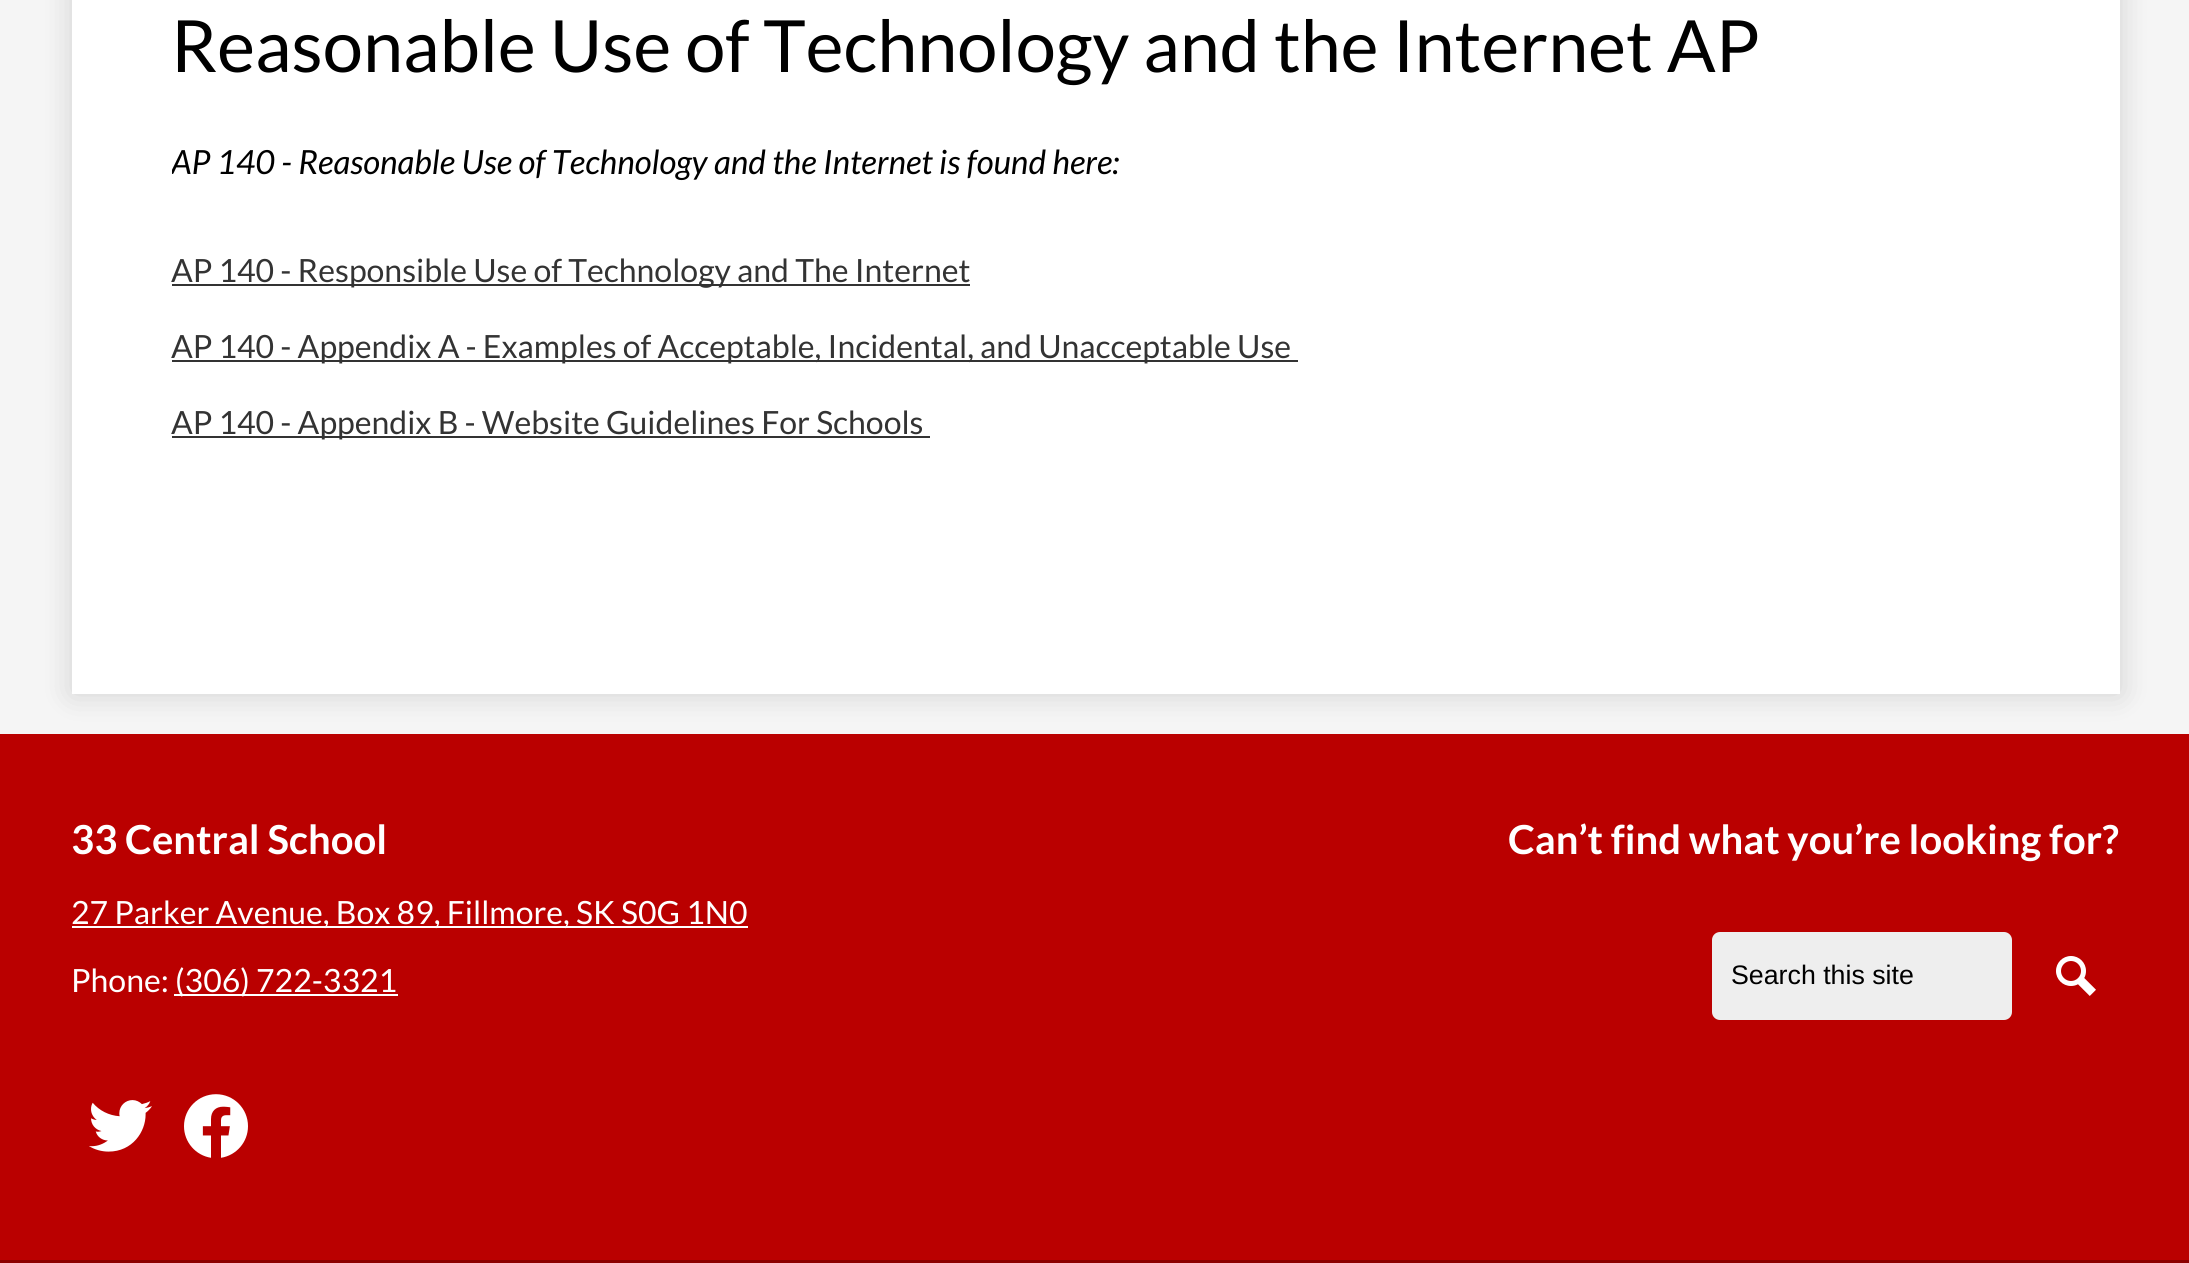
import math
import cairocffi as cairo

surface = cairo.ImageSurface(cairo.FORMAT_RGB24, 2189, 1263)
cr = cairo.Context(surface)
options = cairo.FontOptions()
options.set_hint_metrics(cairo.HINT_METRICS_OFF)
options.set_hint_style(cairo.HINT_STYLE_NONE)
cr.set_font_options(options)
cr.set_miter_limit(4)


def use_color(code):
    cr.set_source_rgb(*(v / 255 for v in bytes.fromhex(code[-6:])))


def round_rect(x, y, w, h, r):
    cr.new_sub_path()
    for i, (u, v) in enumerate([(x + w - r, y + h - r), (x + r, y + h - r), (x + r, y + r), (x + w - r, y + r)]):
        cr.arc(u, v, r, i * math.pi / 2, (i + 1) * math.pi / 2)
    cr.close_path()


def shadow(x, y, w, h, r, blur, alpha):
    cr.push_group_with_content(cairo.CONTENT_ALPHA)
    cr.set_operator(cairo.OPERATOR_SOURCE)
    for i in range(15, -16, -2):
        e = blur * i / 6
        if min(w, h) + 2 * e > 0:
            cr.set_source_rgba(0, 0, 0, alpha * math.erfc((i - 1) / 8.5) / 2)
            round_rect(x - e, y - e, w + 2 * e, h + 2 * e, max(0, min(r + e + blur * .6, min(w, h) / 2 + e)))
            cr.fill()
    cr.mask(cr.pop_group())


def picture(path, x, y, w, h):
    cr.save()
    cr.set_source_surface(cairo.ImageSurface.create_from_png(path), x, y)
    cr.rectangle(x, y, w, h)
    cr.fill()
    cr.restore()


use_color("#f5f5f5")
cr.paint()
use_color("#ba0000")
cr.rectangle(0, 734, 2189, 526)
cr.fill()
use_color("#000000")
shadow(72, -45, 2048, 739, 0, 15, 0.15)
use_color("#ffffff")
cr.rectangle(72, 0, 2048, 694)
cr.fill()
cr.select_font_face("Lato")
cr.set_font_size(72)
use_color("#000000")
cr.move_to(171, 72)
cr.show_text("Reasonable Use of Technology and the Internet AP")
cr.save()
cr.rectangle(172, 142, 1848, 326)
cr.clip()
cr.select_font_face("Lato", cairo.FONT_SLANT_ITALIC)
cr.set_font_size(33.3)
cr.move_to(171, 174)
cr.show_text("AP 140 - Reasonable Use of Technology and the Internet is found here:")
cr.restore()
use_color("#333333")
cr.rectangle(172, 284, 798, 2)
cr.fill()
cr.set_font_size(32)
cr.move_to(171, 282)
cr.show_text("AP 140 - Responsible Use of Technology and The Internet")
cr.rectangle(172, 360, 1126, 2)
cr.fill()
cr.move_to(171, 358)
cr.show_text("AP 140 - Appendix A - Examples of Acceptable, Incidental, and Unacceptable Use")
cr.rectangle(172, 436, 758, 2)
cr.fill()
cr.move_to(171, 434)
cr.show_text("AP 140 - Appendix B - Website Guidelines For Schools")
cr.select_font_face("Lato", cairo.FONT_SLANT_NORMAL, cairo.FONT_WEIGHT_BOLD)
cr.set_font_size(40)
use_color("#ffffff")
cr.move_to(71, 854)
cr.show_text("33 Central School")
cr.rectangle(72, 926, 676, 2)
cr.fill()
cr.select_font_face("Lato")
cr.set_font_size(32)
cr.move_to(71, 924)
cr.show_text("27 Parker Avenue, Box 89, Fillmore, SK S0G 1N0")
cr.move_to(71, 992)
cr.show_text("Phone:")
cr.rectangle(174, 994, 224, 2)
cr.fill()
cr.move_to(175, 992)
cr.show_text("(306) 722-3321")
picture("img1.png", 89, 1100, 63, 52)
picture("img2.png", 184, 1094, 64, 64)
cr.select_font_face("Lato", cairo.FONT_SLANT_NORMAL, cairo.FONT_WEIGHT_BOLD)
cr.set_font_size(40)
cr.move_to(1508, 854)
cr.show_text("Can’t find what you’re looking for?")
use_color("#eeeeee")
round_rect(1712, 932, 300, 88, 8)
cr.fill()
cr.select_font_face("Liberation Sans")
cr.set_font_size(26.75)
use_color("#000000")
cr.move_to(1731, 984)
cr.show_text("Search this site")
picture("img3.png", 2056, 956, 40, 40)
use_color("#8c0000")
cr.rectangle(0, 1260, 2189, 3)
cr.fill()
surface.write_to_png("result.png")
